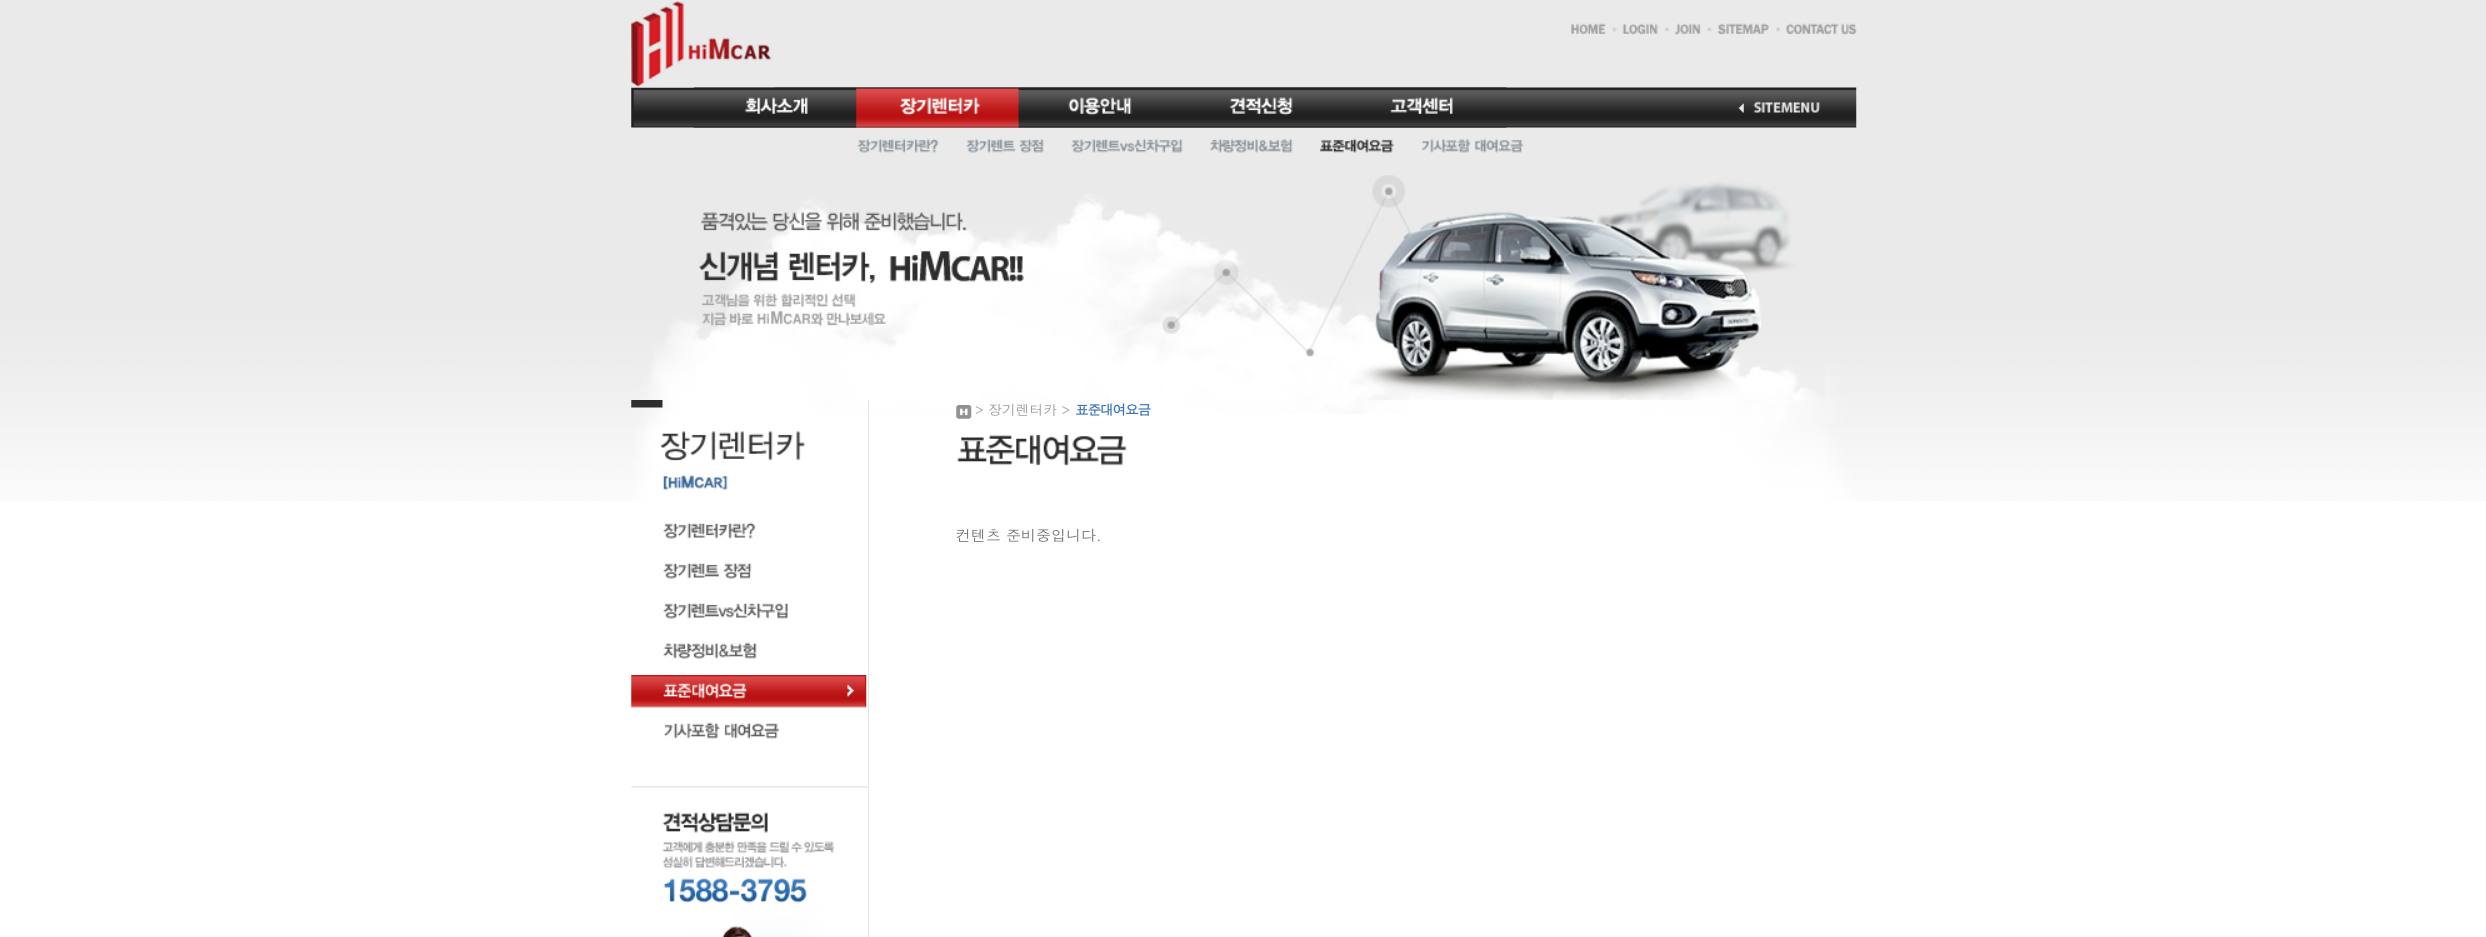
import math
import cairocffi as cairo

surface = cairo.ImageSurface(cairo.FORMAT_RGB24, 2486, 937)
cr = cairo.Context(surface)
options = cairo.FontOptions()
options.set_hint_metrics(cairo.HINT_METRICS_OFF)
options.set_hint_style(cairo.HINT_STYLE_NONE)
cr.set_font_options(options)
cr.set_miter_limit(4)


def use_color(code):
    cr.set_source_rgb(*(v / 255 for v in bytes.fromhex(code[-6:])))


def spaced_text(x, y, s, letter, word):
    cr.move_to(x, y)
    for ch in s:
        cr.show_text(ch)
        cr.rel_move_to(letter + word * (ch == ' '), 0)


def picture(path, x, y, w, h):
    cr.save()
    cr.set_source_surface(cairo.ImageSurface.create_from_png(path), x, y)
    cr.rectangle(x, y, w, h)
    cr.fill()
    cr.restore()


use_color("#ffffff")
cr.paint()
picture("img1.png", 0, 0, 2486, 501)
picture("img8.png", 631, 87, 1226, 41)
picture("img2.png", 631, 1, 144, 87)
picture("img3.png", 1571, 23, 35, 12)
picture("img4.png", 1612, 23, 46, 12)
picture("img5.png", 1665, 23, 36, 12)
picture("img6.png", 1707, 23, 62, 12)
picture("img7.png", 1776, 23, 81, 12)
picture("img9.png", 693, 87, 164, 41)
picture("img10.png", 856, 87, 163, 41)
picture("img11.png", 857, 138, 82, 15)
picture("img12.png", 966, 138, 78, 15)
picture("img13.png", 1071, 138, 112, 15)
picture("img14.png", 1210, 138, 83, 15)
picture("img15.png", 1319, 138, 75, 15)
picture("img16.png", 1421, 138, 103, 15)
picture("img17.png", 1018, 87, 164, 41)
picture("img18.png", 1181, 87, 163, 41)
picture("img19.png", 1343, 87, 164, 41)
picture("img20.png", 698, 175, 1127, 225)
use_color("#e4e4e4")
cr.rectangle(868, 400, 1, 537)
cr.fill()
picture("img21.png", 631, 400, 175, 91)
picture("img22.png", 663, 522, 93, 17)
picture("img23.png", 663, 563, 89, 16)
picture("img24.png", 663, 603, 125, 16)
picture("img25.png", 663, 642, 94, 17)
picture("img26.png", 631, 675, 236, 33)
picture("img27.png", 663, 722, 116, 17)
picture("img28.png", 631, 786, 237, 151)
picture("img29.png", 956, 405, 16, 14)
cr.select_font_face("Dotum")
cr.set_font_size(13.75)
use_color("#969696")
cr.move_to(975, 415)
cr.show_text("> 장기렌터카 >")
cr.select_font_face("Dotum", cairo.FONT_SLANT_NORMAL, cairo.FONT_WEIGHT_BOLD)
use_color("#3b75b7")
spaced_text(1075, 415, "표준대여요금", -1.25, 0)
picture("img30.png", 957, 434, 170, 32)
cr.select_font_face("Dotum")
cr.set_font_size(15)
use_color("#6c6c6c")
cr.move_to(956, 541)
cr.show_text("컨텐츠 준비중입니다.")
surface.write_to_png("result.png")
